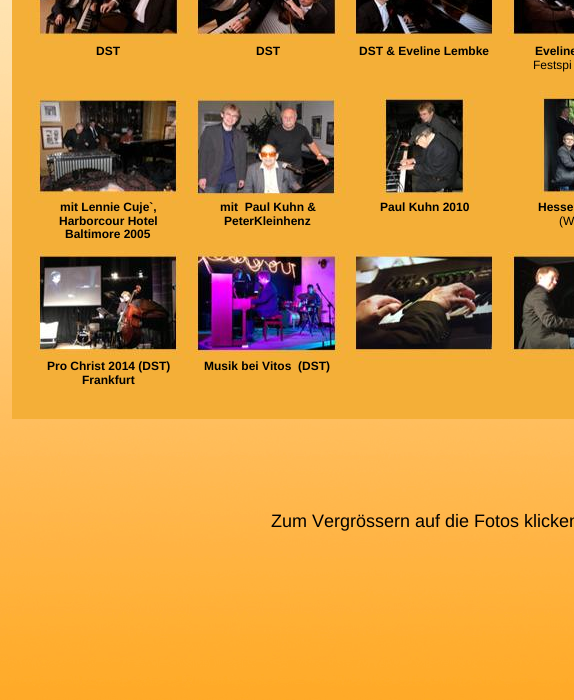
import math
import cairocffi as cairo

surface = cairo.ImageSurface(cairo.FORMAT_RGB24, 574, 700)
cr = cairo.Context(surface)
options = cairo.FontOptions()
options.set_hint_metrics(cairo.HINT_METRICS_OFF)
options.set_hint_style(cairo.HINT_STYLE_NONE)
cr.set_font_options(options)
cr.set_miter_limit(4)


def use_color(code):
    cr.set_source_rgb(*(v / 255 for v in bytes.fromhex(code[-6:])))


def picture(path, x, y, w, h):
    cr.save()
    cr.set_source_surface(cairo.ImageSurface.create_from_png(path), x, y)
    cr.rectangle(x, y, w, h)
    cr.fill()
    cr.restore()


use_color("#ffffff")
cr.paint()
picture("img1.png", 0, 0, 574, 700)
picture("img2.png", 12, 0, 562, 419)
cr.select_font_face("Liberation Sans", cairo.FONT_SLANT_NORMAL, cairo.FONT_WEIGHT_BOLD)
cr.set_font_size(12)
use_color("#000000")
cr.move_to(96, 55)
cr.show_text("DST")
cr.move_to(256, 55)
cr.show_text("DST")
cr.move_to(359, 55)
cr.show_text("DST & Eveline Lembke")
cr.move_to(535, 55)
cr.show_text("Eveline")
cr.select_font_face("Liberation Sans")
cr.move_to(533, 69)
cr.show_text("Festspi")
cr.select_font_face("Liberation Sans", cairo.FONT_SLANT_NORMAL, cairo.FONT_WEIGHT_BOLD)
cr.move_to(60, 211)
cr.show_text("mit Lennie Cuje`,")
cr.move_to(59, 225)
cr.show_text("Harborcour Hotel")
cr.move_to(65, 238)
cr.show_text("Baltimore 2005")
cr.move_to(220, 211)
cr.show_text("mit  Paul Kuhn &")
cr.move_to(224, 225)
cr.show_text("PeterKleinhenz")
cr.move_to(380, 211)
cr.show_text("Paul Kuhn 2010")
cr.move_to(538, 211)
cr.show_text("Hesse")
cr.select_font_face("Liberation Sans")
cr.move_to(559, 225)
cr.show_text("(W")
cr.select_font_face("Liberation Sans", cairo.FONT_SLANT_NORMAL, cairo.FONT_WEIGHT_BOLD)
cr.move_to(47, 370)
cr.show_text("Pro Christ 2014 (DST)")
cr.move_to(82, 384)
cr.show_text("Frankfurt")
cr.move_to(204, 370)
cr.show_text("Musik bei Vitos  (DST)")
cr.select_font_face("Liberation Sans")
cr.set_font_size(18)
cr.move_to(271, 527)
cr.show_text("Zum Vergrössern auf die Fotos klicken")
surface.write_to_png("result.png")
